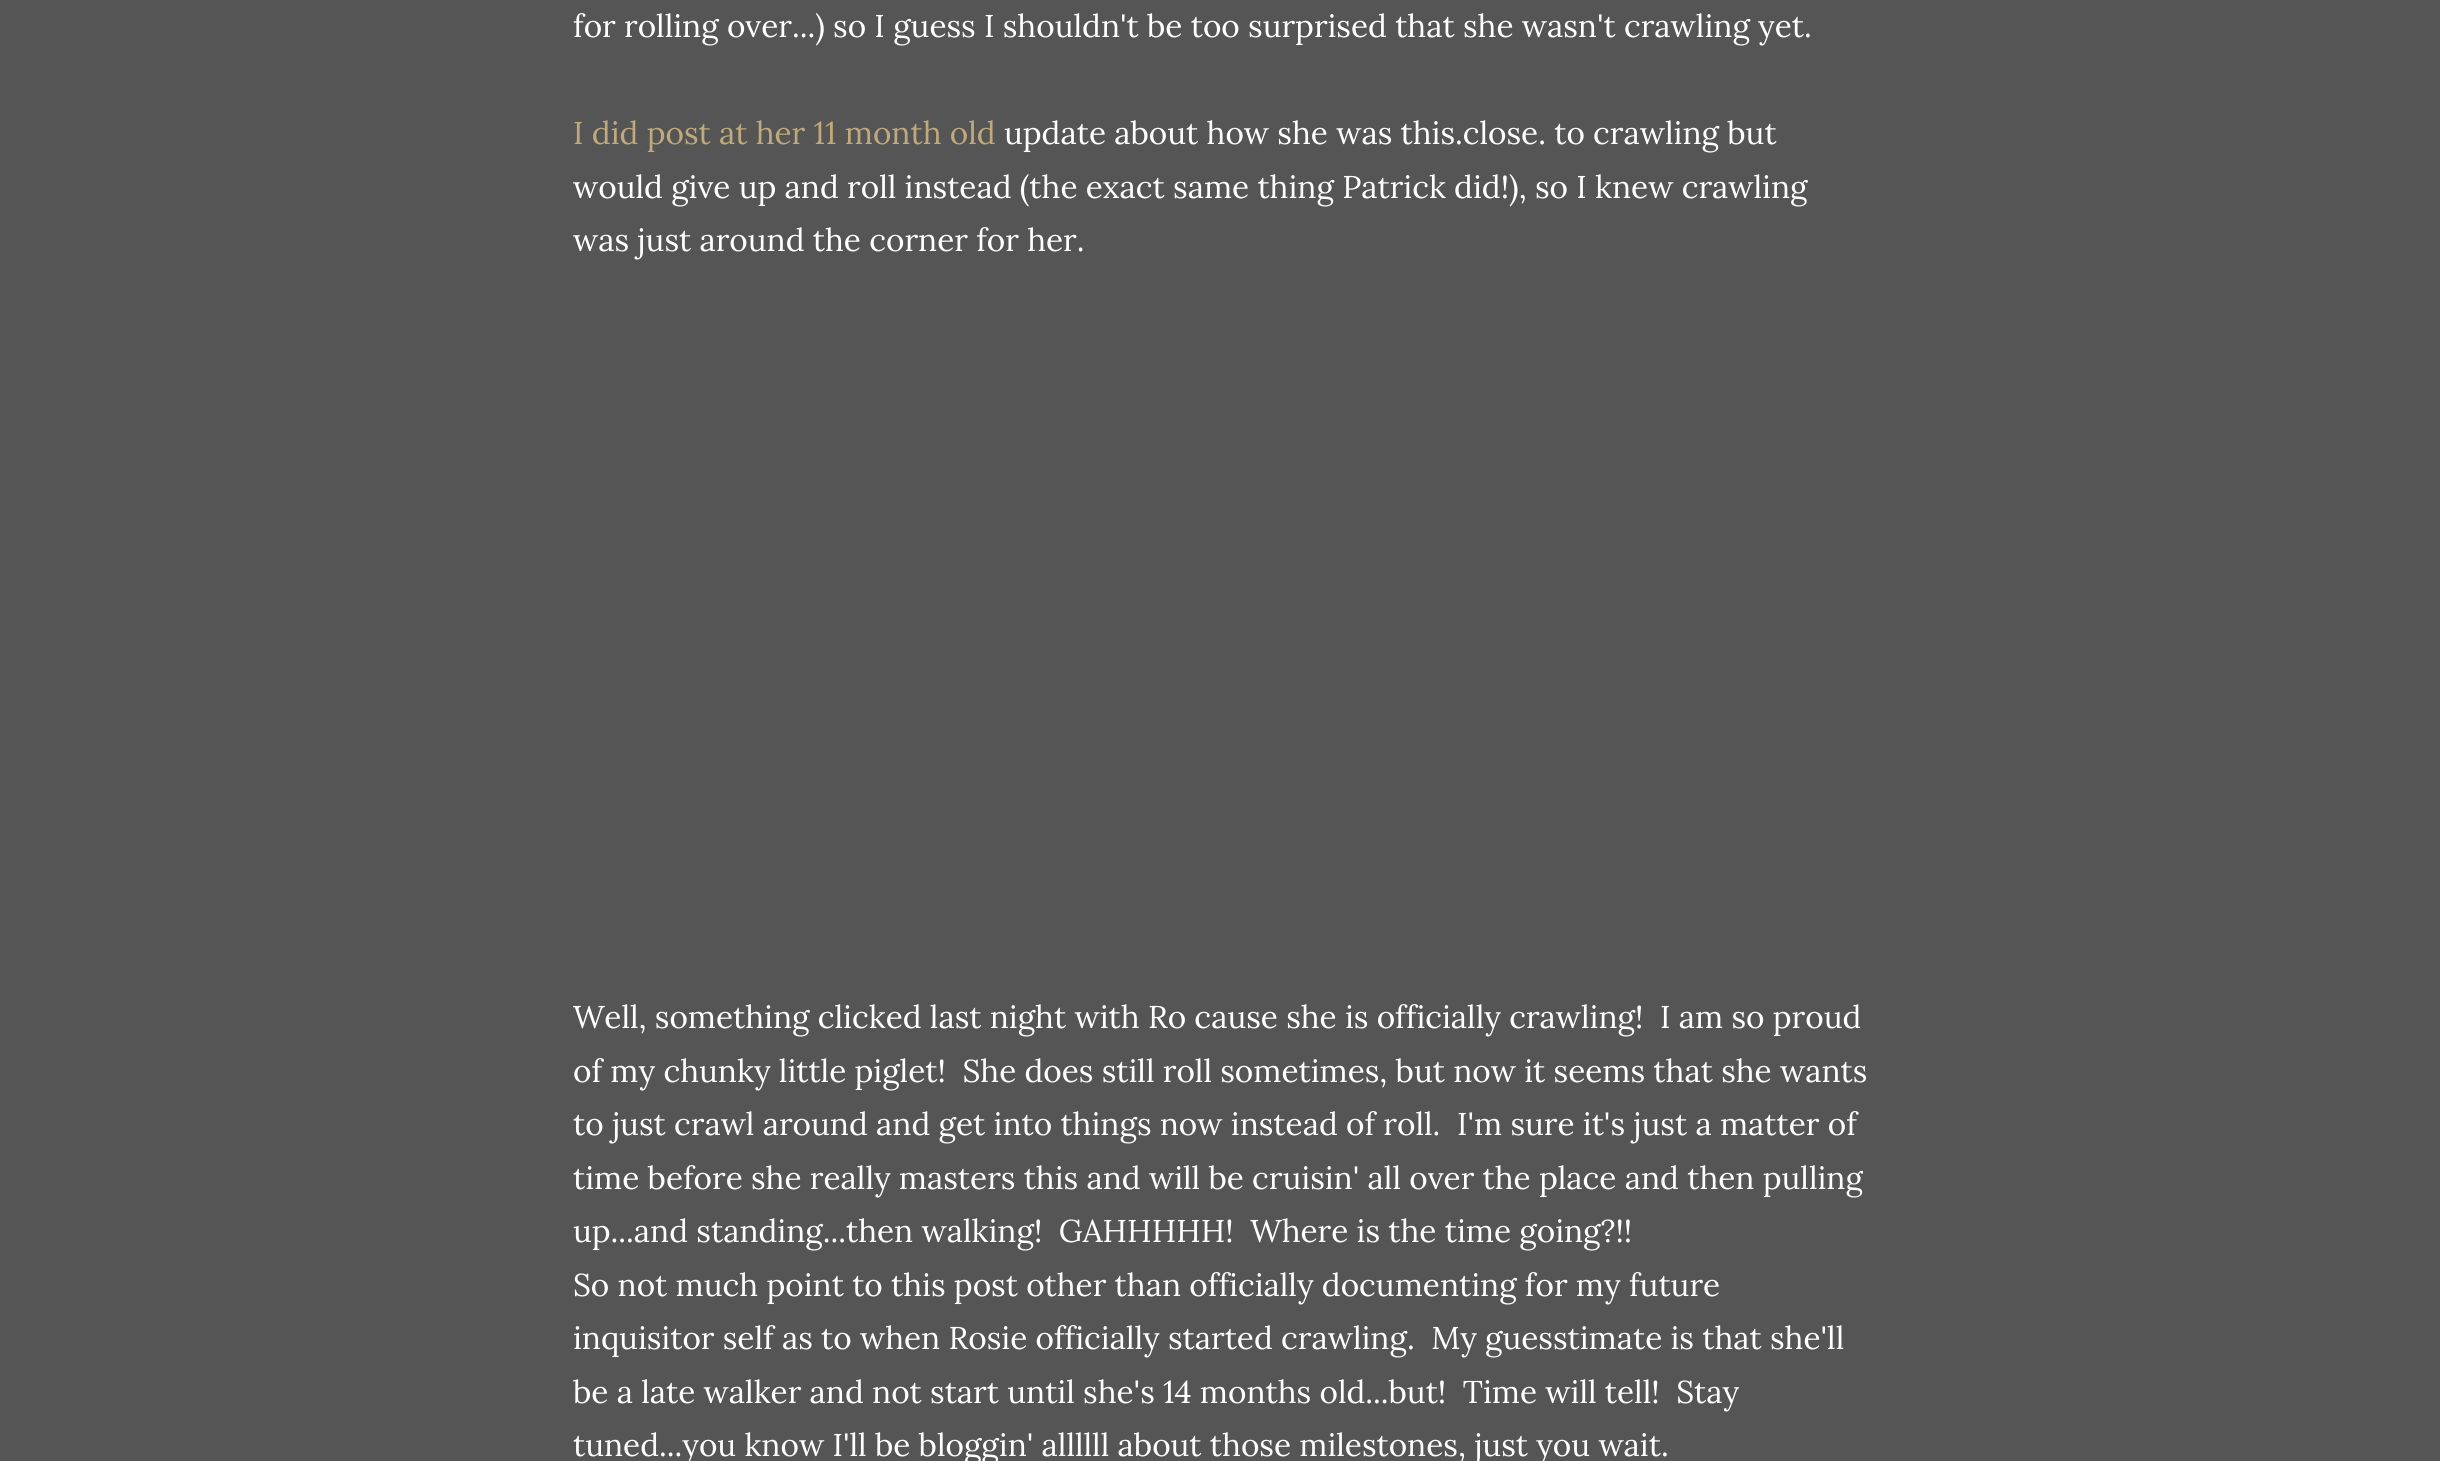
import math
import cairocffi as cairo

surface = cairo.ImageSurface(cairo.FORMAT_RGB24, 2440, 1461)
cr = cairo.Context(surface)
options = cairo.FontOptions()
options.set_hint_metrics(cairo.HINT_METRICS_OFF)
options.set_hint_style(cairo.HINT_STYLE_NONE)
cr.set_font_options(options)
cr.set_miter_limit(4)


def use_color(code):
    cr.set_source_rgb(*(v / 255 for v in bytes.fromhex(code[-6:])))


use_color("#555555")
cr.paint()
cr.select_font_face("Lora")
cr.set_font_size(31.5)
use_color("#ffffff")
cr.move_to(573, 37)
cr.show_text("for rolling over...) so I guess I shouldn't be too surprised that she wasn't crawling yet.")
use_color("#c0a97a")
cr.move_to(573, 144)
cr.show_text("I did post at her 11 month old")
use_color("#ffffff")
cr.move_to(1004, 144)
cr.show_text("update about how she was this.close. to crawling but")
cr.move_to(573, 198)
cr.show_text("would give up and roll instead (the exact same thing Patrick did!), so I knew crawling")
cr.move_to(573, 251)
cr.show_text("was just around the corner for her.")
cr.move_to(573, 1028)
cr.show_text("Well, something clicked last night with Ro cause she is officially crawling!  I am so proud")
cr.move_to(573, 1082)
cr.show_text("of my chunky little piglet!  She does still roll sometimes, but now it seems that she wants")
cr.move_to(573, 1135)
cr.show_text("to just crawl around and get into things now instead of roll.  I'm sure it's just a matter of")
cr.move_to(573, 1189)
cr.show_text("time before she really masters this and will be cruisin' all over the place and then pulling")
cr.move_to(573, 1242)
cr.show_text("up...and standing...then walking!  GAHHHHH!  Where is the time going?!!")
cr.move_to(573, 1296)
cr.show_text("So not much point to this post other than officially documenting for my future")
cr.move_to(573, 1349)
cr.show_text("inquisitor self as to when Rosie officially started crawling.  My guesstimate is that she'll")
cr.move_to(573, 1403)
cr.show_text("be a late walker and not start until she's 14 months old...but!  Time will tell!  Stay")
cr.move_to(573, 1456)
cr.show_text("tuned...you know I'll be bloggin' allllll about those milestones, just you wait.")
surface.write_to_png("result.png")
